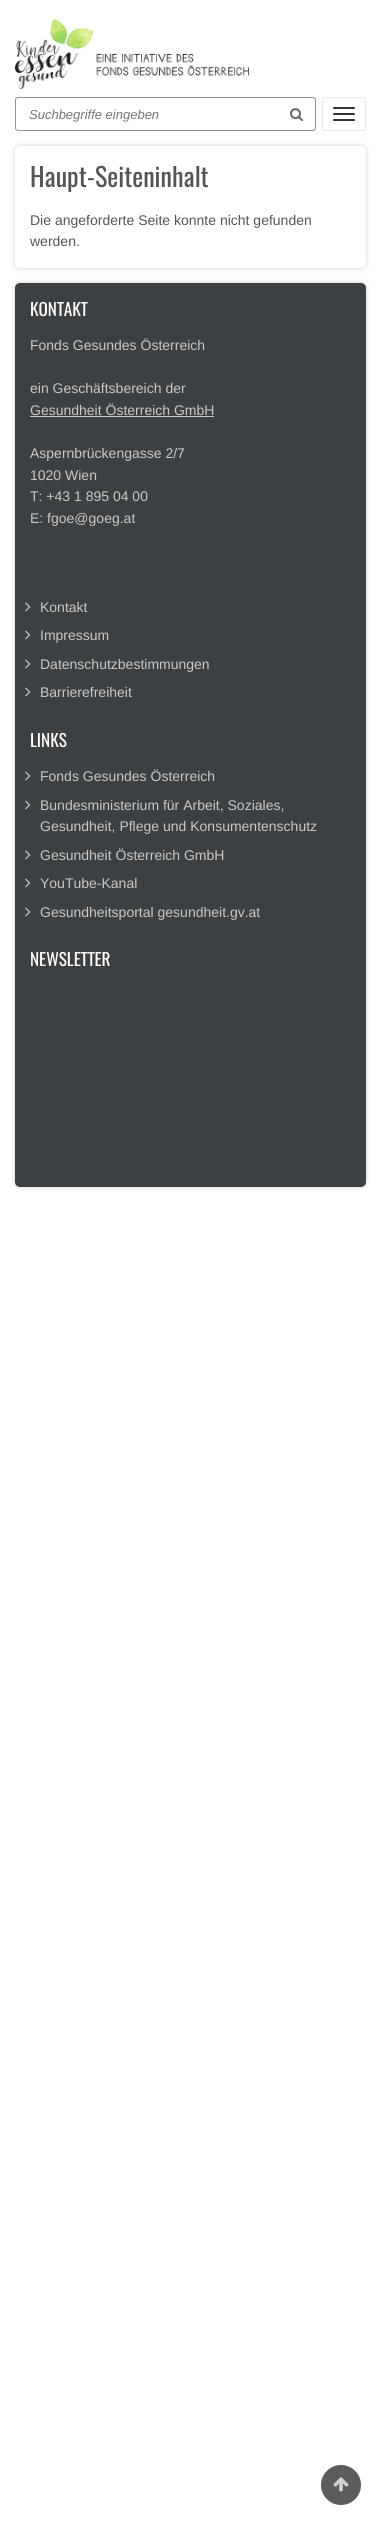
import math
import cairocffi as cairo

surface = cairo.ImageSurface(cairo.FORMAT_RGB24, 381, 2525)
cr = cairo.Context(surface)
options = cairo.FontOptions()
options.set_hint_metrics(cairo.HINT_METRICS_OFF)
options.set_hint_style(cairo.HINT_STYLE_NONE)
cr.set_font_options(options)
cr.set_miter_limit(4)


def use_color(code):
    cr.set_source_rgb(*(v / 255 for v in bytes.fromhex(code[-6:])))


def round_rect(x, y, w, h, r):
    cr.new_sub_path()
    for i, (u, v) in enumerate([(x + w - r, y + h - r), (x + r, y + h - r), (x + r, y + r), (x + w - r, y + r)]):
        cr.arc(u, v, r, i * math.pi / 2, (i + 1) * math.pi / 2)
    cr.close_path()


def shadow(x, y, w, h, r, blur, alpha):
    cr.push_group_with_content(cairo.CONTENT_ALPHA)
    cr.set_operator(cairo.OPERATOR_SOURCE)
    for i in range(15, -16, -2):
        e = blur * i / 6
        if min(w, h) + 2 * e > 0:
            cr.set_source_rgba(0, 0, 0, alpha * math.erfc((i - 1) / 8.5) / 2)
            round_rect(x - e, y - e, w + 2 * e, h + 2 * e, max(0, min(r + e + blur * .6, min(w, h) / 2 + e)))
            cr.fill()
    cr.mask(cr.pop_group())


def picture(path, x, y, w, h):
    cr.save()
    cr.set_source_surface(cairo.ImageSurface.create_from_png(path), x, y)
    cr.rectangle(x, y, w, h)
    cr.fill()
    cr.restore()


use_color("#ffffff")
cr.paint()
picture("img1.png", 15, 19, 234, 70)
round_rect(15.5, 97.5, 300, 33, 2.5)
use_color("#919191")
cr.set_line_width(1)
cr.stroke()
cr.select_font_face("Liberation Sans", cairo.FONT_SLANT_ITALIC)
cr.set_font_size(13)
use_color("#757575")
cr.move_to(29, 119)
cr.show_text("Suchbegriffe eingeben")
picture("img2.png", 290, 108, 13, 13)
round_rect(322.5, 97.5, 43, 33, 2.5)
use_color("#e7e8e9")
cr.stroke()
use_color("#333333")
round_rect(333, 107, 22, 2, 1)
cr.fill()
round_rect(333, 113, 22, 2, 1)
cr.fill()
round_rect(333, 119, 22, 2, 1)
cr.fill()
use_color("#cccccc")
shadow(15, 146, 351, 122, 5, 2.5, 1)
use_color("#ffffff")
round_rect(15, 146, 351, 122, 5)
cr.fill()
cr.select_font_face("Oswald")
cr.set_font_size(26)
use_color("#555555")
cr.move_to(30, 187)
cr.show_text("Haupt-Seiteninhalt")
cr.select_font_face("Liberation Sans")
cr.set_font_size(14)
cr.move_to(30, 225)
cr.show_text("Die angeforderte Seite konnte nicht gefunden")
cr.move_to(30, 246)
cr.show_text("werden.")
use_color("#cccccc")
shadow(15, 283, 351, 904, 5, 2.5, 1)
use_color("#3c4043")
round_rect(15, 283, 351, 904, 5)
cr.fill()
cr.select_font_face("Oswald")
cr.set_font_size(17.25)
use_color("#ffffff")
cr.move_to(30, 316)
cr.show_text("KONTAKT")
cr.select_font_face("Liberation Sans")
cr.set_font_size(14)
use_color("#c9c9c9")
cr.move_to(30, 350)
cr.show_text("Fonds Gesundes Österreich")
cr.move_to(30, 393)
cr.show_text("ein Geschäftsbereich der")
cr.move_to(30, 415)
cr.show_text("Gesundheit Österreich GmbH")
cr.rectangle(30, 416, 184, 1)
cr.fill()
cr.move_to(30, 458)
cr.show_text("Aspernbrückengasse 2/7")
cr.move_to(30, 480)
cr.show_text("1020 Wien")
cr.move_to(30, 501)
cr.show_text("T: +43 1 895 04 00")
cr.move_to(30, 523)
cr.show_text("E: fgoe@goeg.at")
picture("img3.png", 25, 602, 6, 10)
cr.move_to(40, 612)
cr.show_text("Kontakt")
picture("img3.png", 25, 630, 6, 10)
cr.move_to(40, 640)
cr.show_text("Impressum")
picture("img3.png", 25, 659, 6, 10)
cr.move_to(40, 669)
cr.show_text("Datenschutzbestimmungen")
picture("img3.png", 25, 687, 6, 10)
cr.move_to(40, 697)
cr.show_text("Barrierefreiheit")
cr.select_font_face("Oswald")
cr.set_font_size(17.25)
use_color("#ffffff")
cr.move_to(30, 747)
cr.show_text("LINKS")
picture("img3.png", 25, 771, 6, 10)
cr.select_font_face("Liberation Sans")
cr.set_font_size(14)
use_color("#c9c9c9")
cr.move_to(40, 781)
cr.show_text("Fonds Gesundes Österreich")
picture("img3.png", 25, 800, 6, 10)
cr.move_to(40, 810)
cr.show_text("Bundesministerium für Arbeit, Soziales,")
cr.move_to(40, 831)
cr.show_text("Gesundheit, Pflege und Konsumentenschutz")
picture("img3.png", 25, 850, 6, 10)
cr.move_to(40, 860)
cr.show_text("Gesundheit Österreich GmbH")
picture("img3.png", 25, 878, 6, 10)
cr.move_to(40, 888)
cr.show_text("YouTube-Kanal")
picture("img3.png", 25, 907, 6, 10)
cr.move_to(40, 917)
cr.show_text("Gesundheitsportal gesundheit.gv.at")
cr.select_font_face("Oswald")
cr.set_font_size(17.25)
use_color("#ffffff")
cr.move_to(30, 966)
cr.show_text("NEWSLETTER")
use_color("#5c5c5c")
cr.new_path()
cr.arc(341, 2485, 20, 0, 2 * math.pi)
cr.fill()
picture("img4.png", 333, 2477, 16, 15)
surface.write_to_png("result.png")
